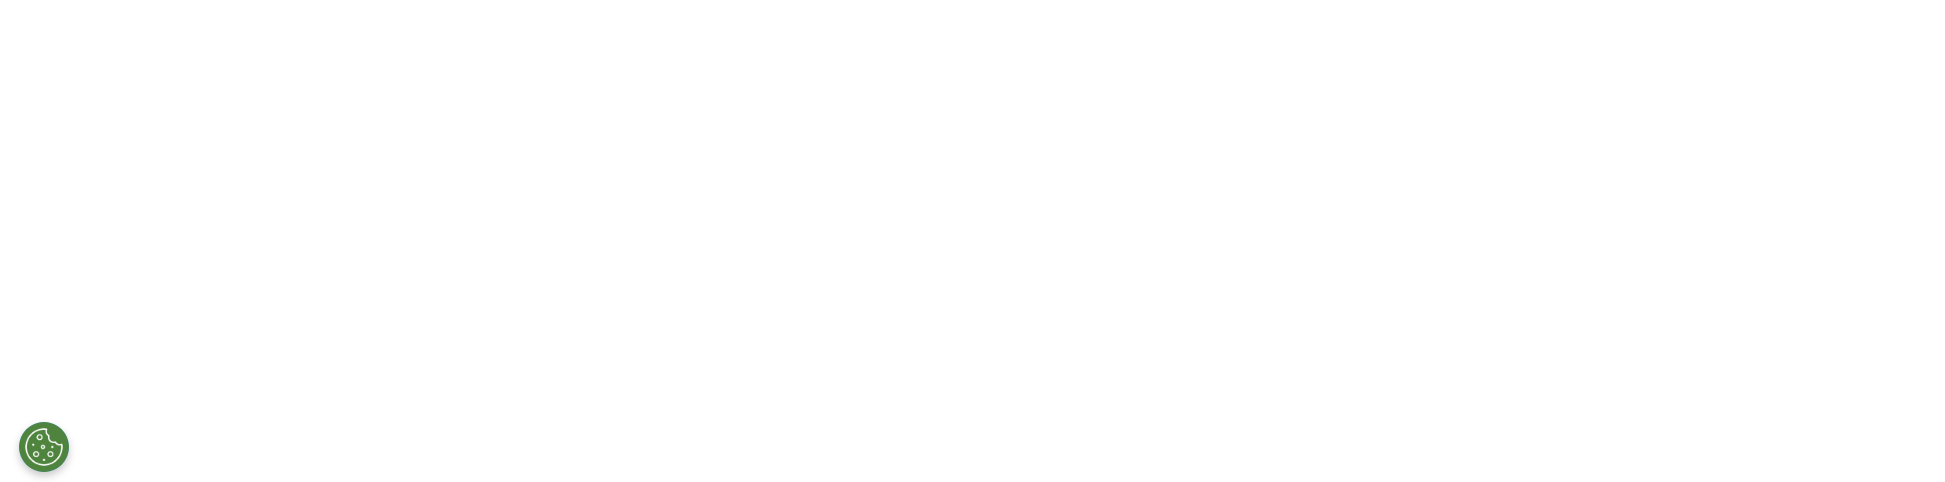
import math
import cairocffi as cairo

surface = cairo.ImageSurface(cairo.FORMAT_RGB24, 1945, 482)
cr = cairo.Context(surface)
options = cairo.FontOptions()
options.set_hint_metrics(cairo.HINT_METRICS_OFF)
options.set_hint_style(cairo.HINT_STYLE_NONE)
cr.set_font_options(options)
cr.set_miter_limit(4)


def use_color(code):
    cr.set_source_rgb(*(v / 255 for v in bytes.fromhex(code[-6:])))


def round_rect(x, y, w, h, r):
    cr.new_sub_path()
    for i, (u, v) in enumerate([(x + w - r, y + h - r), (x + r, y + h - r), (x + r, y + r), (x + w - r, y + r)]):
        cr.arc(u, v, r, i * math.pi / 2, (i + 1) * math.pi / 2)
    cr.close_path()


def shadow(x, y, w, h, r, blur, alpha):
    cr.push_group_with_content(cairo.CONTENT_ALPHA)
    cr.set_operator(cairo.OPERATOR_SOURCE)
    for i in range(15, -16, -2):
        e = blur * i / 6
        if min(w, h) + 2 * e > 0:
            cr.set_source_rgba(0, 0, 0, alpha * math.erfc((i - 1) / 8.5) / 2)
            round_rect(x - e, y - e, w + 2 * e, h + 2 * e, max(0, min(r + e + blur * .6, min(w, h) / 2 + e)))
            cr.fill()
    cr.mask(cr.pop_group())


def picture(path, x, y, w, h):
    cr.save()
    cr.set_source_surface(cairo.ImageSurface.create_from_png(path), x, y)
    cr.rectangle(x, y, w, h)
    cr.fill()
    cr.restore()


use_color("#ffffff")
cr.paint()
use_color("#000000")
shadow(19, 426, 50, 50, 25, 4, 0.2)
use_color("#6aaae4")
cr.arc(44, 447, 25, 0, 2 * math.pi)
cr.fill()
picture("img1.png", 19, 422, 50, 50)
surface.write_to_png("result.png")
